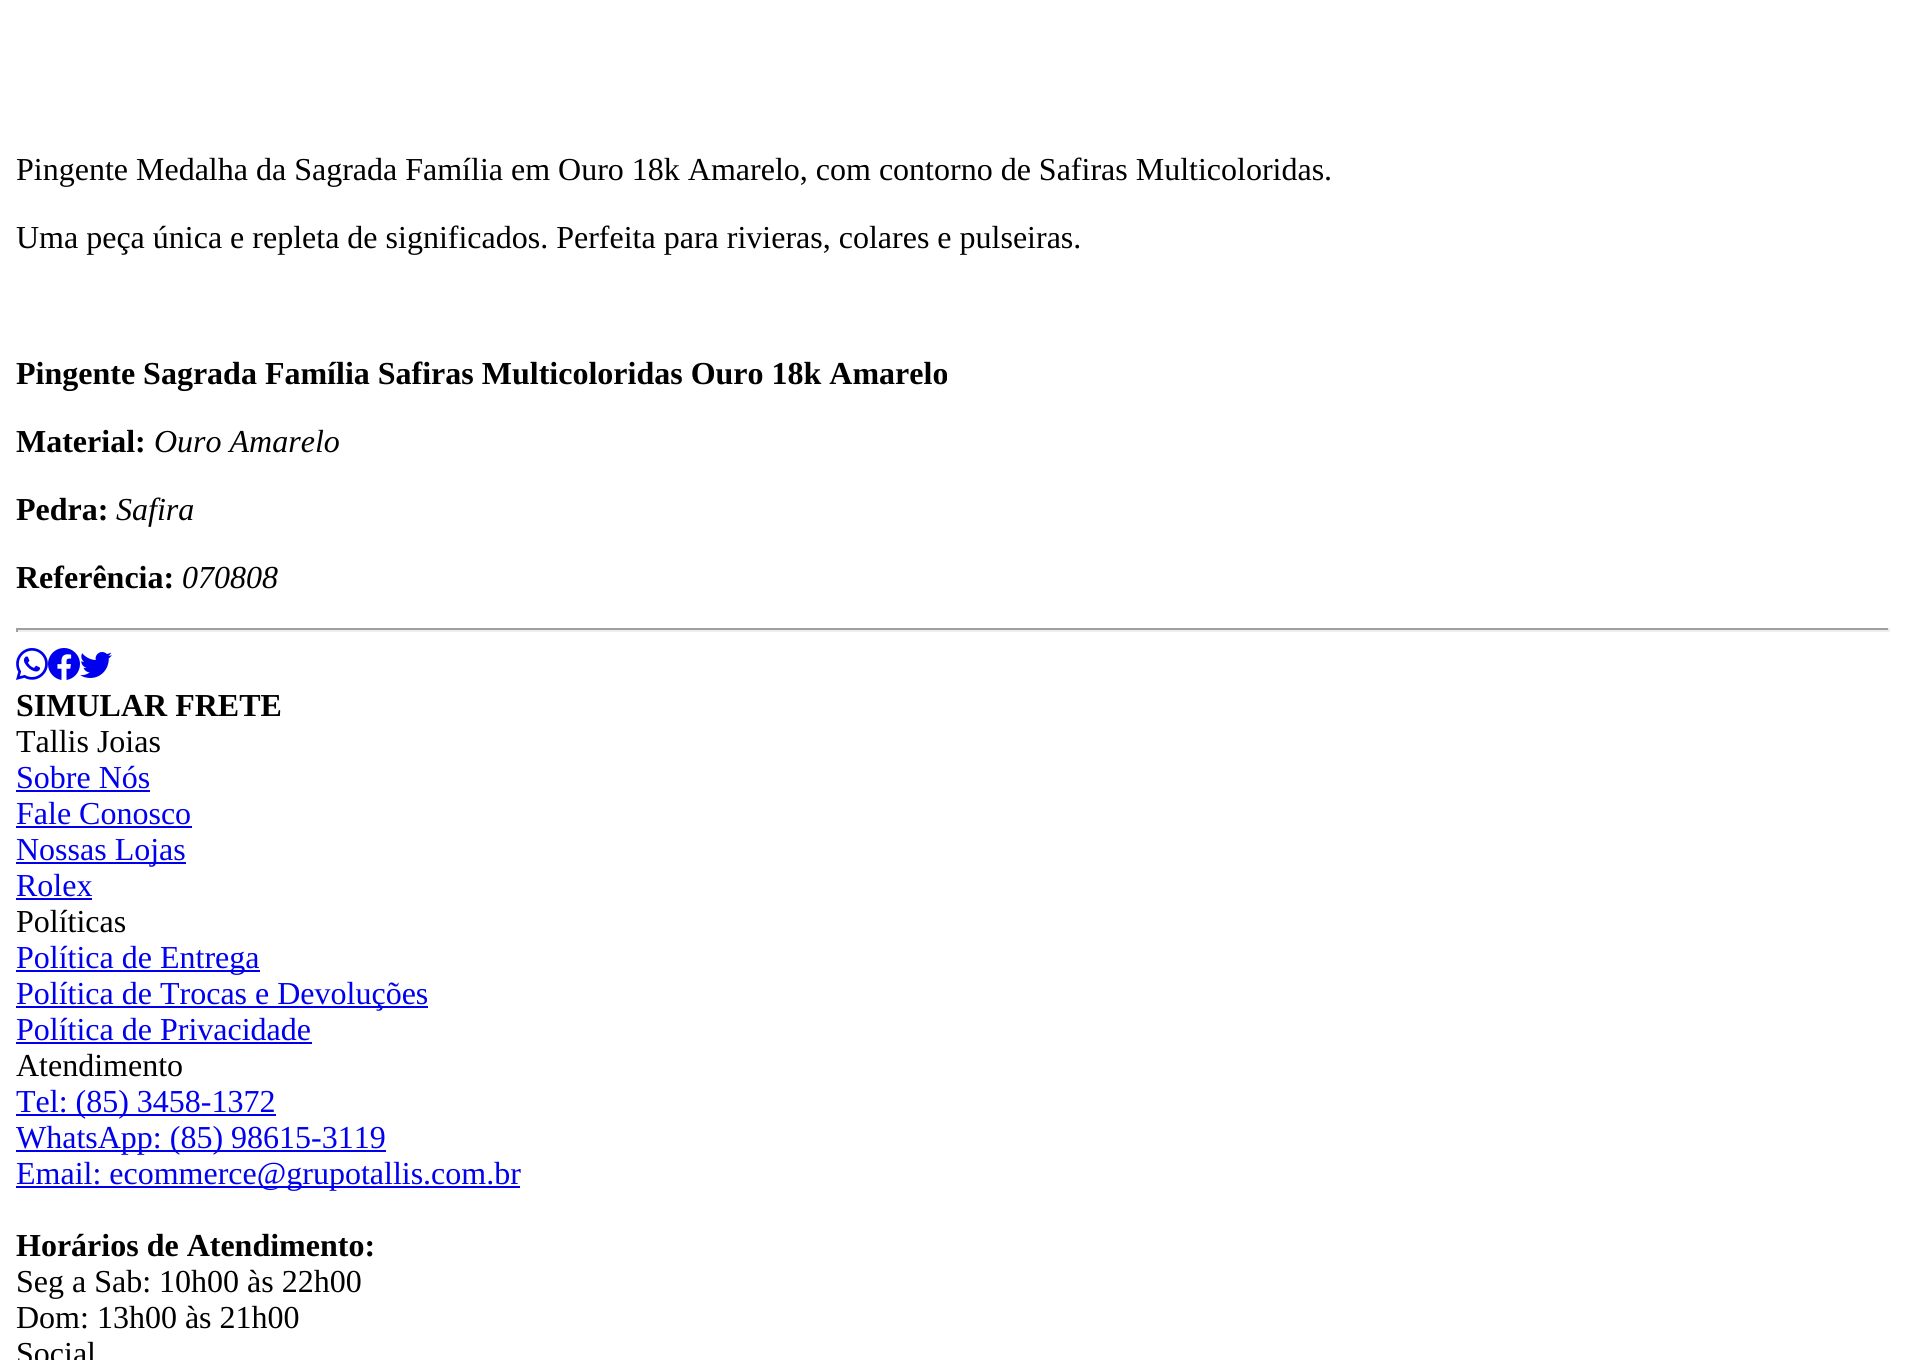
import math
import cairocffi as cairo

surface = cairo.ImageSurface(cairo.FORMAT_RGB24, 1906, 1360)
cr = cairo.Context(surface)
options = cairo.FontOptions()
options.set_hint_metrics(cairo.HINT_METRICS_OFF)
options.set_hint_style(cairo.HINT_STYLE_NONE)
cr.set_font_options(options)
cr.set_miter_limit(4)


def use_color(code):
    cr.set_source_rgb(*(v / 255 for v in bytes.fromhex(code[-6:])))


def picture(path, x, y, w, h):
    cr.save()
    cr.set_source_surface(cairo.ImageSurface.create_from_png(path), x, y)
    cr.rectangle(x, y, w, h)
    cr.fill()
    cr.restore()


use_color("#ffffff")
cr.paint()
cr.select_font_face("Liberation Serif")
cr.set_font_size(32)
use_color("#000000")
cr.move_to(16, 180)
cr.show_text("Pingente Medalha da Sagrada Família em Ouro 18k Amarelo, com contorno de Safiras Multicoloridas.")
cr.move_to(16, 248)
cr.show_text("Uma peça única e repleta de significados. Perfeita para rivieras, colares e pulseiras.")
cr.select_font_face("Liberation Serif", cairo.FONT_SLANT_NORMAL, cairo.FONT_WEIGHT_BOLD)
cr.move_to(16, 384)
cr.show_text("Pingente Sagrada Família Safiras Multicoloridas Ouro 18k Amarelo")
cr.move_to(16, 452)
cr.show_text("Material:")
cr.select_font_face("Liberation Serif", cairo.FONT_SLANT_ITALIC)
cr.move_to(154, 452)
cr.show_text("Ouro Amarelo")
cr.select_font_face("Liberation Serif", cairo.FONT_SLANT_NORMAL, cairo.FONT_WEIGHT_BOLD)
cr.move_to(16, 520)
cr.show_text("Pedra:")
cr.select_font_face("Liberation Serif", cairo.FONT_SLANT_ITALIC)
cr.move_to(116, 520)
cr.show_text("Safira")
cr.select_font_face("Liberation Serif", cairo.FONT_SLANT_NORMAL, cairo.FONT_WEIGHT_BOLD)
cr.move_to(16, 588)
cr.show_text("Referência:")
cr.select_font_face("Liberation Serif", cairo.FONT_SLANT_ITALIC)
cr.move_to(182, 588)
cr.show_text("070808")
use_color("#9f9f9f")
cr.rectangle(16, 628, 1874, 2)
cr.fill()
use_color("#eeeeee")
cr.rectangle(1888, 628, 2, 4)
cr.fill()
cr.rectangle(16, 630, 1874, 2)
cr.fill()
use_color("#9f9f9f")
cr.rectangle(16, 628, 2, 4)
cr.fill()
picture("img1.png", 16, 648, 32, 32)
picture("img2.png", 48, 648, 32, 32)
picture("img3.png", 80, 652, 32, 26)
cr.select_font_face("Liberation Serif", cairo.FONT_SLANT_NORMAL, cairo.FONT_WEIGHT_BOLD)
use_color("#000000")
cr.move_to(16, 716)
cr.show_text("SIMULAR FRETE")
cr.select_font_face("Liberation Serif")
cr.move_to(16, 752)
cr.show_text("Tallis Joias")
use_color("#0000ee")
cr.move_to(16, 788)
cr.show_text("Sobre Nós")
cr.rectangle(16, 790, 134, 2)
cr.fill()
cr.move_to(16, 824)
cr.show_text("Fale Conosco")
cr.rectangle(16, 826, 176, 2)
cr.fill()
cr.rectangle(16, 862, 170, 2)
cr.fill()
cr.move_to(16, 860)
cr.show_text("Nossas Lojas")
cr.move_to(16, 896)
cr.show_text("Rolex")
cr.rectangle(16, 898, 76, 2)
cr.fill()
use_color("#000000")
cr.move_to(16, 932)
cr.show_text("Políticas")
use_color("#0000ee")
cr.rectangle(16, 970, 244, 2)
cr.fill()
cr.move_to(16, 968)
cr.show_text("Política de Entrega")
cr.rectangle(16, 1006, 412, 2)
cr.fill()
cr.move_to(16, 1004)
cr.show_text("Política de Trocas e Devoluções")
cr.move_to(16, 1040)
cr.show_text("Política de Privacidade")
cr.rectangle(16, 1042, 296, 2)
cr.fill()
use_color("#000000")
cr.move_to(16, 1076)
cr.show_text("Atendimento")
use_color("#0000ee")
cr.rectangle(16, 1114, 260, 2)
cr.fill()
cr.move_to(16, 1112)
cr.show_text("Tel: (85) 3458-1372")
cr.rectangle(16, 1150, 370, 2)
cr.fill()
cr.move_to(16, 1148)
cr.show_text("WhatsApp: (85) 98615-3119")
cr.rectangle(16, 1186, 504, 2)
cr.fill()
cr.move_to(16, 1184)
cr.show_text("Email: ecommerce@grupotallis.com.br")
cr.select_font_face("Liberation Serif", cairo.FONT_SLANT_NORMAL, cairo.FONT_WEIGHT_BOLD)
use_color("#000000")
cr.move_to(16, 1256)
cr.show_text("Horários de Atendimento:")
cr.select_font_face("Liberation Serif")
cr.move_to(16, 1292)
cr.show_text("Seg a Sab: 10h00 às 22h00")
cr.move_to(16, 1328)
cr.show_text("Dom: 13h00 às 21h00")
cr.move_to(16, 1364)
cr.show_text("Social")
surface.write_to_png("result.png")
